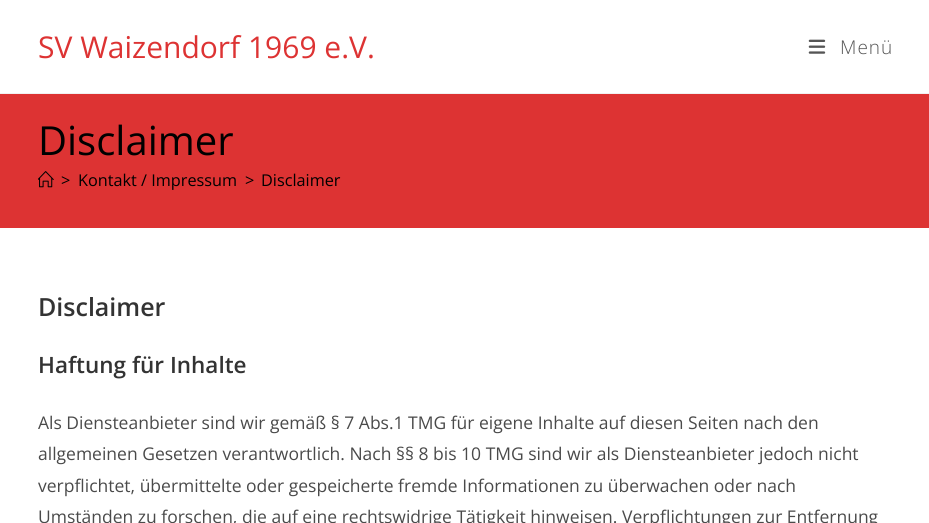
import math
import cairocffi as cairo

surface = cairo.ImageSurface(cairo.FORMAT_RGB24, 929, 523)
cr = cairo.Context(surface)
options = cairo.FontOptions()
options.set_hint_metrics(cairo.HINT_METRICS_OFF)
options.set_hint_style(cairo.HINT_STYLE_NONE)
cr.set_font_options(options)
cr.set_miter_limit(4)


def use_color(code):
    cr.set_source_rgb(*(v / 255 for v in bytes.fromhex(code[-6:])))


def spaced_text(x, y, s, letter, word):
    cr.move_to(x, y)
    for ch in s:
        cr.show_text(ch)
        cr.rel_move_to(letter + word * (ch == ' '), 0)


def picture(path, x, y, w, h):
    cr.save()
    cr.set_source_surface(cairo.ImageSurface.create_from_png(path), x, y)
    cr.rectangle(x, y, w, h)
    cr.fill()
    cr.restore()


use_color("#ffffff")
cr.paint()
use_color("#f1f1f1")
cr.rectangle(0, 93, 929, 1)
cr.fill()
cr.select_font_face("Open Sans")
cr.set_font_size(30)
use_color("#dd3333")
cr.move_to(38, 58)
cr.show_text("SV Waizendorf 1969 e.V.")
picture("img1.png", 808, 39, 18, 15)
cr.select_font_face("Open Sans Light")
cr.set_font_size(19)
use_color("#555555")
spaced_text(840, 54, "Menü", 1, 0)
use_color("#dd3333")
cr.rectangle(0, 94, 929, 134)
cr.fill()
cr.select_font_face("Open Sans")
cr.set_font_size(40)
use_color("#000000")
cr.move_to(38, 155)
cr.show_text("Disclaimer")
picture("img2.png", 38, 171, 16, 17)
cr.set_font_size(16.25)
cr.move_to(61, 186)
cr.show_text(">")
cr.move_to(78, 186)
cr.show_text("Kontakt / Impressum")
cr.move_to(245, 186)
cr.show_text(">")
cr.move_to(261, 186)
cr.show_text("Disclaimer")
cr.select_font_face("Open Sans SemiBold")
cr.set_font_size(25)
use_color("#333333")
cr.move_to(38, 316)
cr.show_text("Disclaimer")
cr.set_font_size(22.5)
cr.move_to(38, 373)
cr.show_text("Haftung für Inhalte")
cr.select_font_face("Open Sans")
cr.set_font_size(17.5)
use_color("#4a4a4a")
cr.move_to(38, 429)
cr.show_text("Als Diensteanbieter sind wir gemäß § 7 Abs.1 TMG für eigene Inhalte auf diesen Seiten nach den")
cr.move_to(38, 460)
cr.show_text("allgemeinen Gesetzen verantwortlich. Nach §§ 8 bis 10 TMG sind wir als Diensteanbieter jedoch nicht")
cr.move_to(38, 492)
cr.show_text("verpflichtet, übermittelte oder gespeicherte fremde Informationen zu überwachen oder nach")
cr.move_to(38, 523)
cr.show_text("Umständen zu forschen, die auf eine rechtswidrige Tätigkeit hinweisen. Verpflichtungen zur Entfernung")
surface.write_to_png("result.png")
